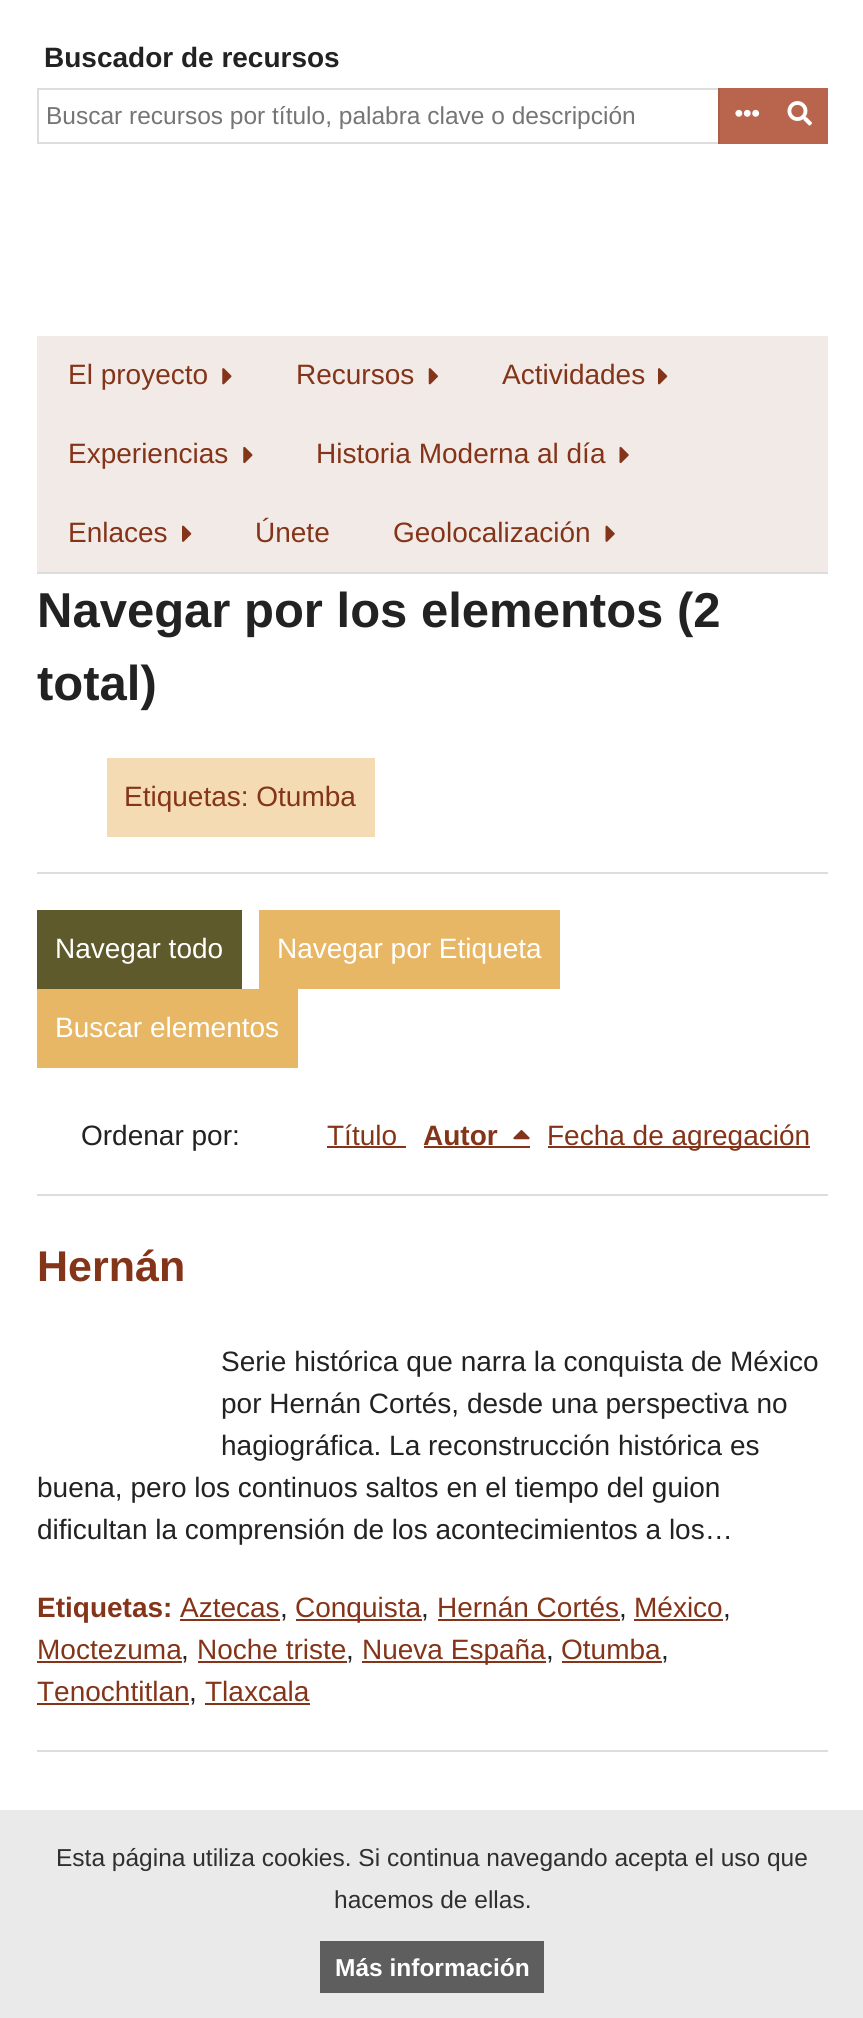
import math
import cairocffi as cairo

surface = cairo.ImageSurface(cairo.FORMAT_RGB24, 863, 2018)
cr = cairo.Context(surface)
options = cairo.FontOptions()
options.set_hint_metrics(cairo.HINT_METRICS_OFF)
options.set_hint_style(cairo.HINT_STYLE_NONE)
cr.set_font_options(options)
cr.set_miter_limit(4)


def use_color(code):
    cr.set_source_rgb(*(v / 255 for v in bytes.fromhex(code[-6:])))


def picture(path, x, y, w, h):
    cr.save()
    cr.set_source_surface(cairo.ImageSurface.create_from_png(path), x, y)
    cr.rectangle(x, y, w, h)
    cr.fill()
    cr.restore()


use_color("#ffffff")
cr.paint()
cr.select_font_face("Liberation Sans", cairo.FONT_SLANT_NORMAL, cairo.FONT_WEIGHT_BOLD)
cr.set_font_size(28)
use_color("#222222")
cr.move_to(44, 67)
cr.show_text("Buscador de recursos")
cr.rectangle(38, 89, 789, 54)
use_color("#dddddd")
cr.stroke()
use_color("#b9654d")
cr.rectangle(720, 88, 108, 56)
cr.fill()
use_color("#aa5d47")
cr.rectangle(718, 88, 2, 56)
cr.fill()
picture("img1.png", 735, 109, 25, 8)
cr.select_font_face("Liberation Sans")
cr.set_font_size(24.5)
use_color("#757575")
cr.move_to(46, 124)
cr.show_text("Buscar recursos por título, palabra clave o descripción")
picture("img2.png", 787, 101, 25, 25)
use_color("#f2eae7")
cr.rectangle(37, 336, 791, 236)
cr.fill()
cr.set_font_size(28)
use_color("#843418")
cr.move_to(68, 384)
cr.show_text("El proyecto")
picture("img3.png", 222, 368, 10, 17)
cr.move_to(296, 384)
cr.show_text("Recursos")
picture("img4.png", 428, 368, 10, 17)
cr.move_to(502, 384)
cr.show_text("Actividades")
picture("img5.png", 658, 368, 10, 17)
cr.move_to(68, 463)
cr.show_text("Experiencias")
picture("img6.png", 243, 446, 10, 18)
cr.move_to(316, 463)
cr.show_text("Historia Moderna al día")
picture("img7.png", 619, 446, 10, 18)
cr.move_to(68, 542)
cr.show_text("Enlaces")
picture("img8.png", 182, 525, 10, 17)
cr.move_to(255, 542)
cr.show_text("Únete")
cr.move_to(393, 542)
cr.show_text("Geolocalización")
picture("img9.png", 605, 525, 10, 17)
use_color("#dddddd")
cr.rectangle(37, 572, 791, 2)
cr.fill()
cr.select_font_face("Liberation Sans", cairo.FONT_SLANT_NORMAL, cairo.FONT_WEIGHT_BOLD)
cr.set_font_size(49)
use_color("#222222")
cr.move_to(37, 627)
cr.show_text("Navegar por los elementos (2")
cr.move_to(37, 700)
cr.show_text("total)")
use_color("#dddddd")
cr.rectangle(37, 872, 791, 2)
cr.fill()
use_color("#f4dbb3")
cr.rectangle(107, 758, 268, 79)
cr.fill()
cr.select_font_face("Liberation Sans")
cr.set_font_size(28)
use_color("#843418")
cr.move_to(124, 806)
cr.show_text("Etiquetas: Otumba")
use_color("#5e5a2c")
cr.rectangle(37, 910, 205, 79)
cr.fill()
use_color("#ffffff")
cr.move_to(55, 958)
cr.show_text("Navegar todo")
use_color("#e7b765")
cr.rectangle(259, 910, 301, 79)
cr.fill()
use_color("#ffffff")
cr.move_to(277, 958)
cr.show_text("Navegar por Etiqueta")
use_color("#e7b765")
cr.rectangle(37, 989, 261, 79)
cr.fill()
use_color("#ffffff")
cr.move_to(55, 1037)
cr.show_text("Buscar elementos")
use_color("#222222")
cr.move_to(81, 1145)
cr.show_text("Ordenar por:")
use_color("#843418")
cr.move_to(327, 1145)
cr.show_text("Título")
cr.rectangle(327, 1146, 79, 2)
cr.fill()
cr.select_font_face("Liberation Sans", cairo.FONT_SLANT_NORMAL, cairo.FONT_WEIGHT_BOLD)
cr.move_to(423, 1145)
cr.show_text("Autor")
cr.rectangle(424, 1146, 106, 2)
cr.fill()
picture("img10.png", 513, 1130, 17, 10)
cr.rectangle(548, 1146, 262, 2)
cr.fill()
cr.select_font_face("Liberation Sans")
cr.move_to(547, 1145)
cr.show_text("Fecha de agregación")
use_color("#dddddd")
cr.rectangle(37, 1194, 791, 2)
cr.fill()
cr.select_font_face("Liberation Sans", cairo.FONT_SLANT_NORMAL, cairo.FONT_WEIGHT_BOLD)
cr.set_font_size(43)
use_color("#843418")
cr.move_to(37, 1281)
cr.show_text("Hernán")
cr.select_font_face("Liberation Sans")
cr.set_font_size(28)
use_color("#222222")
cr.move_to(221, 1371)
cr.show_text("Serie histórica que narra la conquista de México")
cr.move_to(221, 1413)
cr.show_text("por Hernán Cortés, desde una perspectiva no")
cr.move_to(221, 1455)
cr.show_text("hagiográfica. La reconstrucción histórica es")
cr.move_to(37, 1497)
cr.show_text("buena, pero los continuos saltos en el tiempo del guion")
cr.move_to(37, 1539)
cr.show_text("dificultan la comprensión de los acontecimientos a los…")
cr.select_font_face("Liberation Sans", cairo.FONT_SLANT_NORMAL, cairo.FONT_WEIGHT_BOLD)
use_color("#843418")
cr.move_to(37, 1617)
cr.show_text("Etiquetas:")
cr.select_font_face("Liberation Sans")
cr.move_to(180, 1617)
cr.show_text("Aztecas")
cr.rectangle(180, 1619, 100, 2)
cr.fill()
use_color("#222222")
cr.move_to(280, 1617)
cr.show_text(",")
use_color("#843418")
cr.rectangle(296, 1619, 126, 2)
cr.fill()
cr.move_to(295, 1617)
cr.show_text("Conquista")
use_color("#222222")
cr.move_to(421, 1617)
cr.show_text(",")
use_color("#843418")
cr.move_to(437, 1617)
cr.show_text("Hernán Cortés")
cr.rectangle(438, 1619, 182, 2)
cr.fill()
use_color("#222222")
cr.move_to(619, 1617)
cr.show_text(",")
use_color("#843418")
cr.move_to(634, 1617)
cr.show_text("México")
cr.rectangle(634, 1619, 89, 2)
cr.fill()
use_color("#222222")
cr.move_to(723, 1617)
cr.show_text(",")
use_color("#843418")
cr.move_to(37, 1659)
cr.show_text("Moctezuma")
cr.rectangle(37, 1661, 145, 2)
cr.fill()
use_color("#222222")
cr.move_to(181, 1659)
cr.show_text(",")
use_color("#843418")
cr.move_to(197, 1659)
cr.show_text("Noche triste")
cr.rectangle(198, 1661, 149, 2)
cr.fill()
use_color("#222222")
cr.move_to(346, 1659)
cr.show_text(",")
use_color("#843418")
cr.rectangle(362, 1661, 184, 2)
cr.fill()
cr.move_to(362, 1659)
cr.show_text("Nueva España")
use_color("#222222")
cr.move_to(546, 1659)
cr.show_text(",")
use_color("#843418")
cr.move_to(561, 1659)
cr.show_text("Otumba")
cr.rectangle(562, 1661, 100, 2)
cr.fill()
use_color("#222222")
cr.move_to(661, 1659)
cr.show_text(",")
use_color("#843418")
cr.move_to(37, 1701)
cr.show_text("Tenochtitlan")
cr.rectangle(37, 1703, 152, 2)
cr.fill()
use_color("#222222")
cr.move_to(189, 1701)
cr.show_text(",")
use_color("#843418")
cr.move_to(205, 1701)
cr.show_text("Tlaxcala")
cr.rectangle(205, 1703, 105, 2)
cr.fill()
use_color("#dddddd")
cr.rectangle(37, 1750, 791, 2)
cr.fill()
cr.set_source_rgba(0.914, 0.914, 0.914, 0.95)
cr.rectangle(0, 1810, 863, 208)
cr.fill()
cr.set_font_size(24.5)
use_color("#2f2f2f")
cr.move_to(56, 1866)
cr.show_text("Esta página utiliza cookies. Si continua navegando acepta el uso que")
cr.move_to(334, 1908)
cr.show_text("hacemos de ellas.")
cr.set_source_rgba(0, 0, 0, 0.6)
cr.rectangle(320, 1941, 224, 52)
cr.fill()
cr.select_font_face("Liberation Sans", cairo.FONT_SLANT_NORMAL, cairo.FONT_WEIGHT_BOLD)
use_color("#ffffff")
cr.move_to(335, 1976)
cr.show_text("Más información")
surface.write_to_png("result.png")
